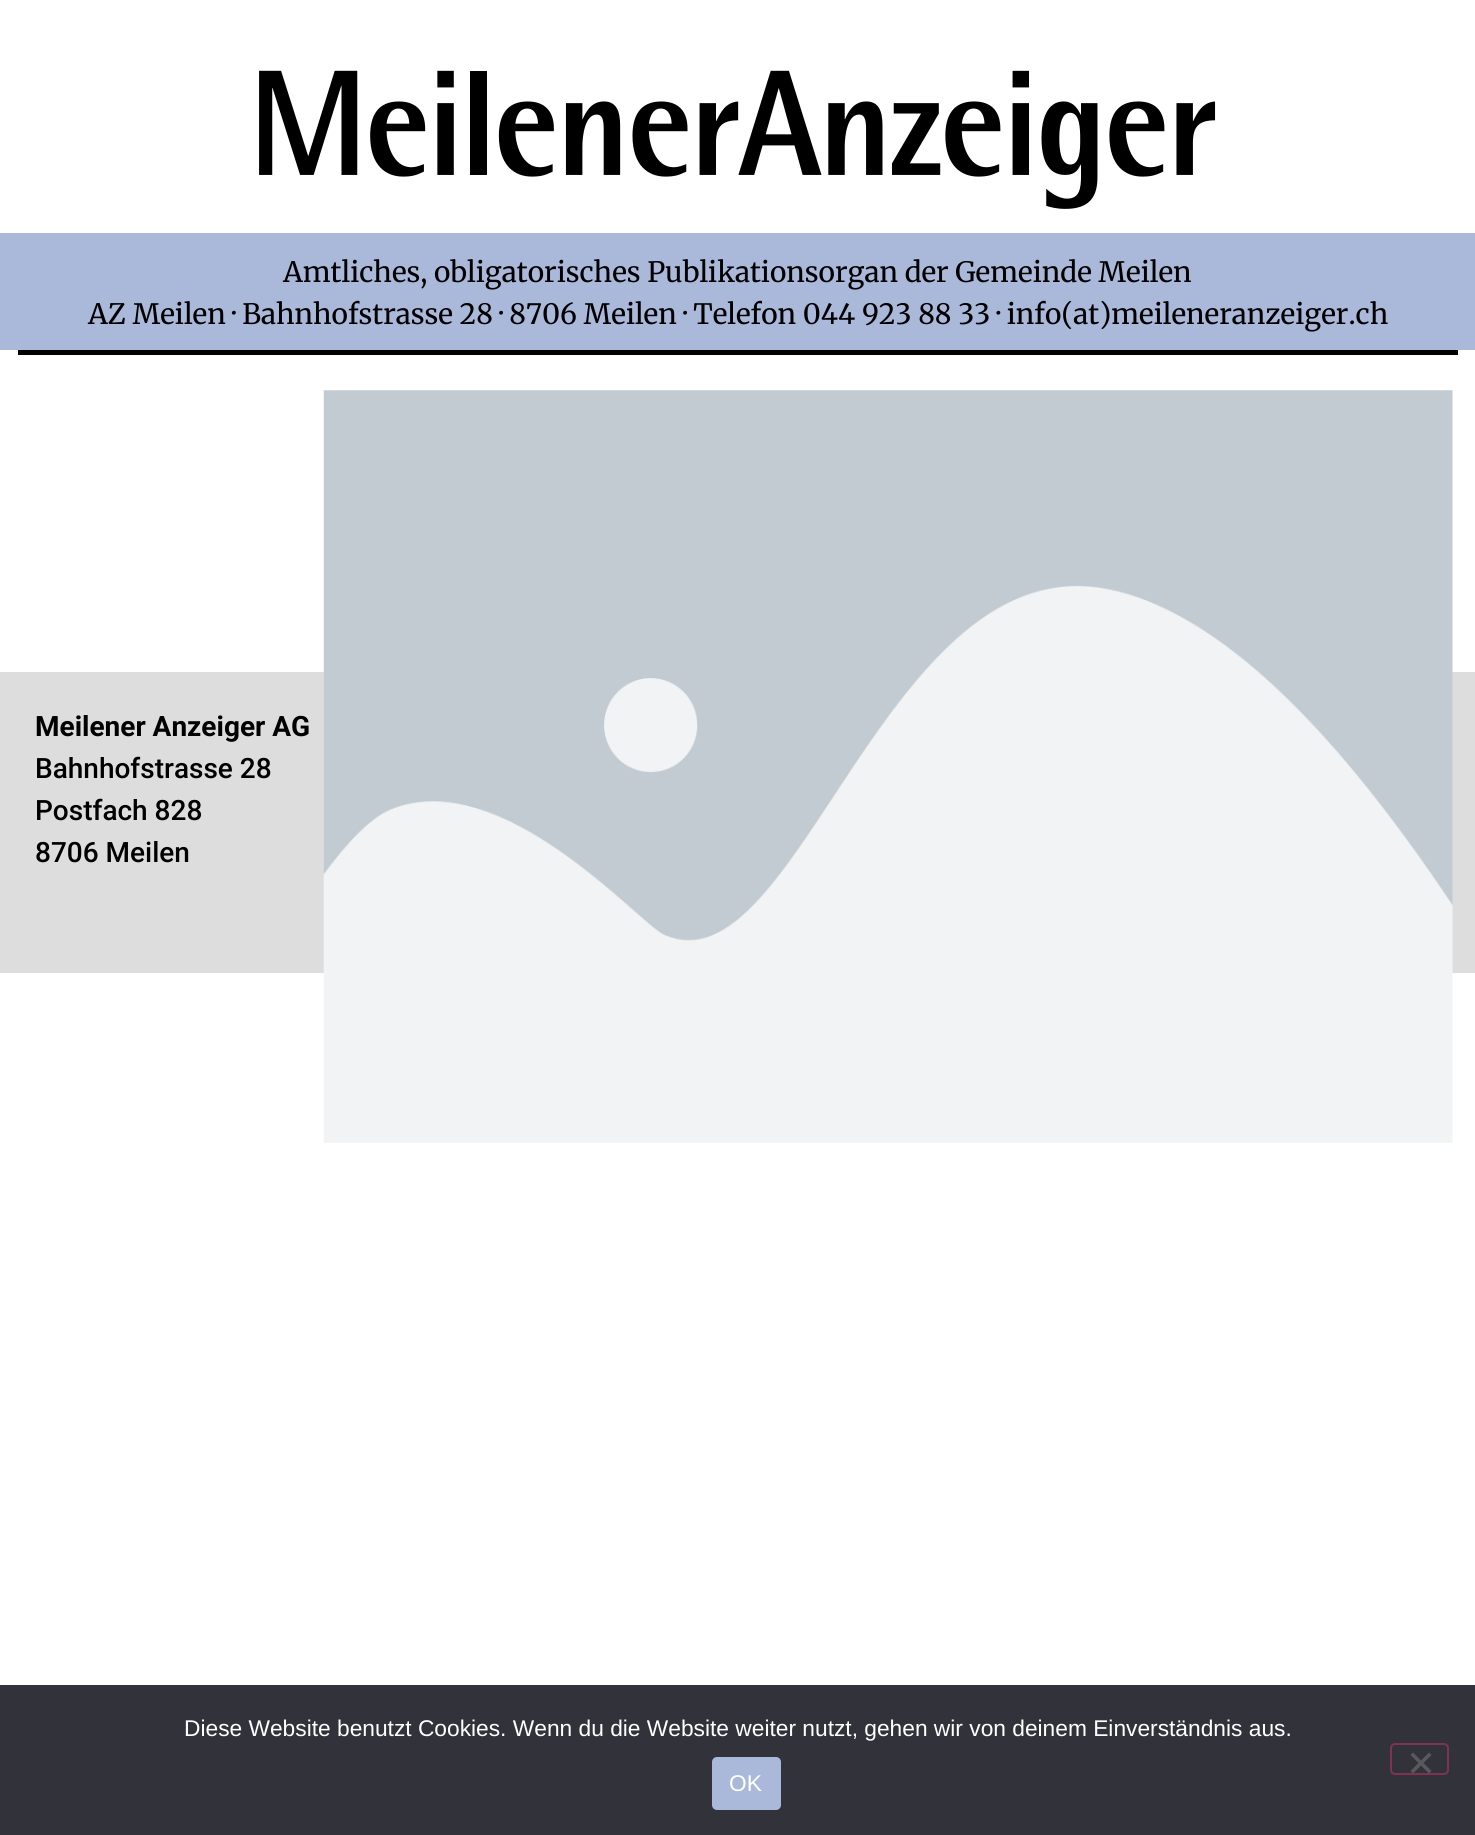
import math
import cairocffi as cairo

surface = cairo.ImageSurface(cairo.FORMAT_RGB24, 1475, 1835)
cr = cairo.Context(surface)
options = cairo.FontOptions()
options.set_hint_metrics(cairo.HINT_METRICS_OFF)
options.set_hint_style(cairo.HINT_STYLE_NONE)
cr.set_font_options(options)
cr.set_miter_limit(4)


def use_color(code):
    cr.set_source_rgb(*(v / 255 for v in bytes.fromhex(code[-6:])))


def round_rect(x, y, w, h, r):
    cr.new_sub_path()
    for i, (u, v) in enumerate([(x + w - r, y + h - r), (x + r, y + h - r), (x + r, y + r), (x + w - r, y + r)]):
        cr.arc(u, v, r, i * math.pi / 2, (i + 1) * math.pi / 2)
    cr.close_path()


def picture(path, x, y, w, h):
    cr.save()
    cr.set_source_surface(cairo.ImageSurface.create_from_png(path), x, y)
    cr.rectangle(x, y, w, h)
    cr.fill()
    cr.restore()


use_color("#ffffff")
cr.paint()
picture("img1.png", 259, 70, 957, 139)
use_color("#aab8da")
cr.rectangle(0, 233, 1475, 117)
cr.fill()
cr.select_font_face("Merriweather")
cr.set_font_size(28)
use_color("#000000")
cr.move_to(283, 282)
cr.show_text("Amtliches, obligatorisches Publikationsorgan der Gemeinde Meilen")
cr.move_to(88, 324)
cr.show_text("AZ Meilen · Bahnhofstrasse 28 · 8706 Meilen · Telefon 044 923 88 33 · info(at)meileneranzeiger.ch")
cr.rectangle(18, 350, 1440, 5)
cr.fill()
use_color("#dddddd")
cr.rectangle(0, 672, 1475, 301)
cr.fill()
cr.select_font_face("Roboto", cairo.FONT_SLANT_NORMAL, cairo.FONT_WEIGHT_BOLD)
use_color("#000000")
cr.move_to(35, 736)
cr.show_text("Meilener Anzeiger AG")
cr.select_font_face("Roboto Medium")
cr.move_to(35, 778)
cr.show_text("Bahnhofstrasse 28")
cr.move_to(35, 820)
cr.show_text("Postfach 828")
cr.move_to(35, 862)
cr.show_text("8706 Meilen")
picture("img2.png", 323, 390, 1130, 753)
use_color("#32323a")
cr.rectangle(0, 1685, 1475, 150)
cr.fill()
cr.select_font_face("Liberation Sans")
cr.set_font_size(22.75)
use_color("#ffffff")
cr.move_to(184, 1736)
cr.show_text("Diese Website benutzt Cookies. Wenn du die Website weiter nutzt, gehen wir von deinem Einverständnis aus.")
round_rect(1391, 1744, 57, 30, 4)
use_color("#7f3350")
cr.stroke()
use_color("#59595d")
cr.new_path()
cr.move_to(1429, 1752.5)
cr.line_to(1431.5, 1755)
cr.line_to(1413, 1773.5)
cr.line_to(1410.5, 1771)
cr.close_path()
cr.fill()
cr.new_path()
cr.move_to(1410.5, 1755)
cr.line_to(1413, 1752.5)
cr.line_to(1431.5, 1771)
cr.line_to(1429, 1773.5)
cr.close_path()
cr.fill()
use_color("#aab8da")
round_rect(712, 1757, 69, 53, 5)
cr.fill()
use_color("#ffffff")
cr.move_to(729, 1791)
cr.show_text("OK")
surface.write_to_png("result.png")
